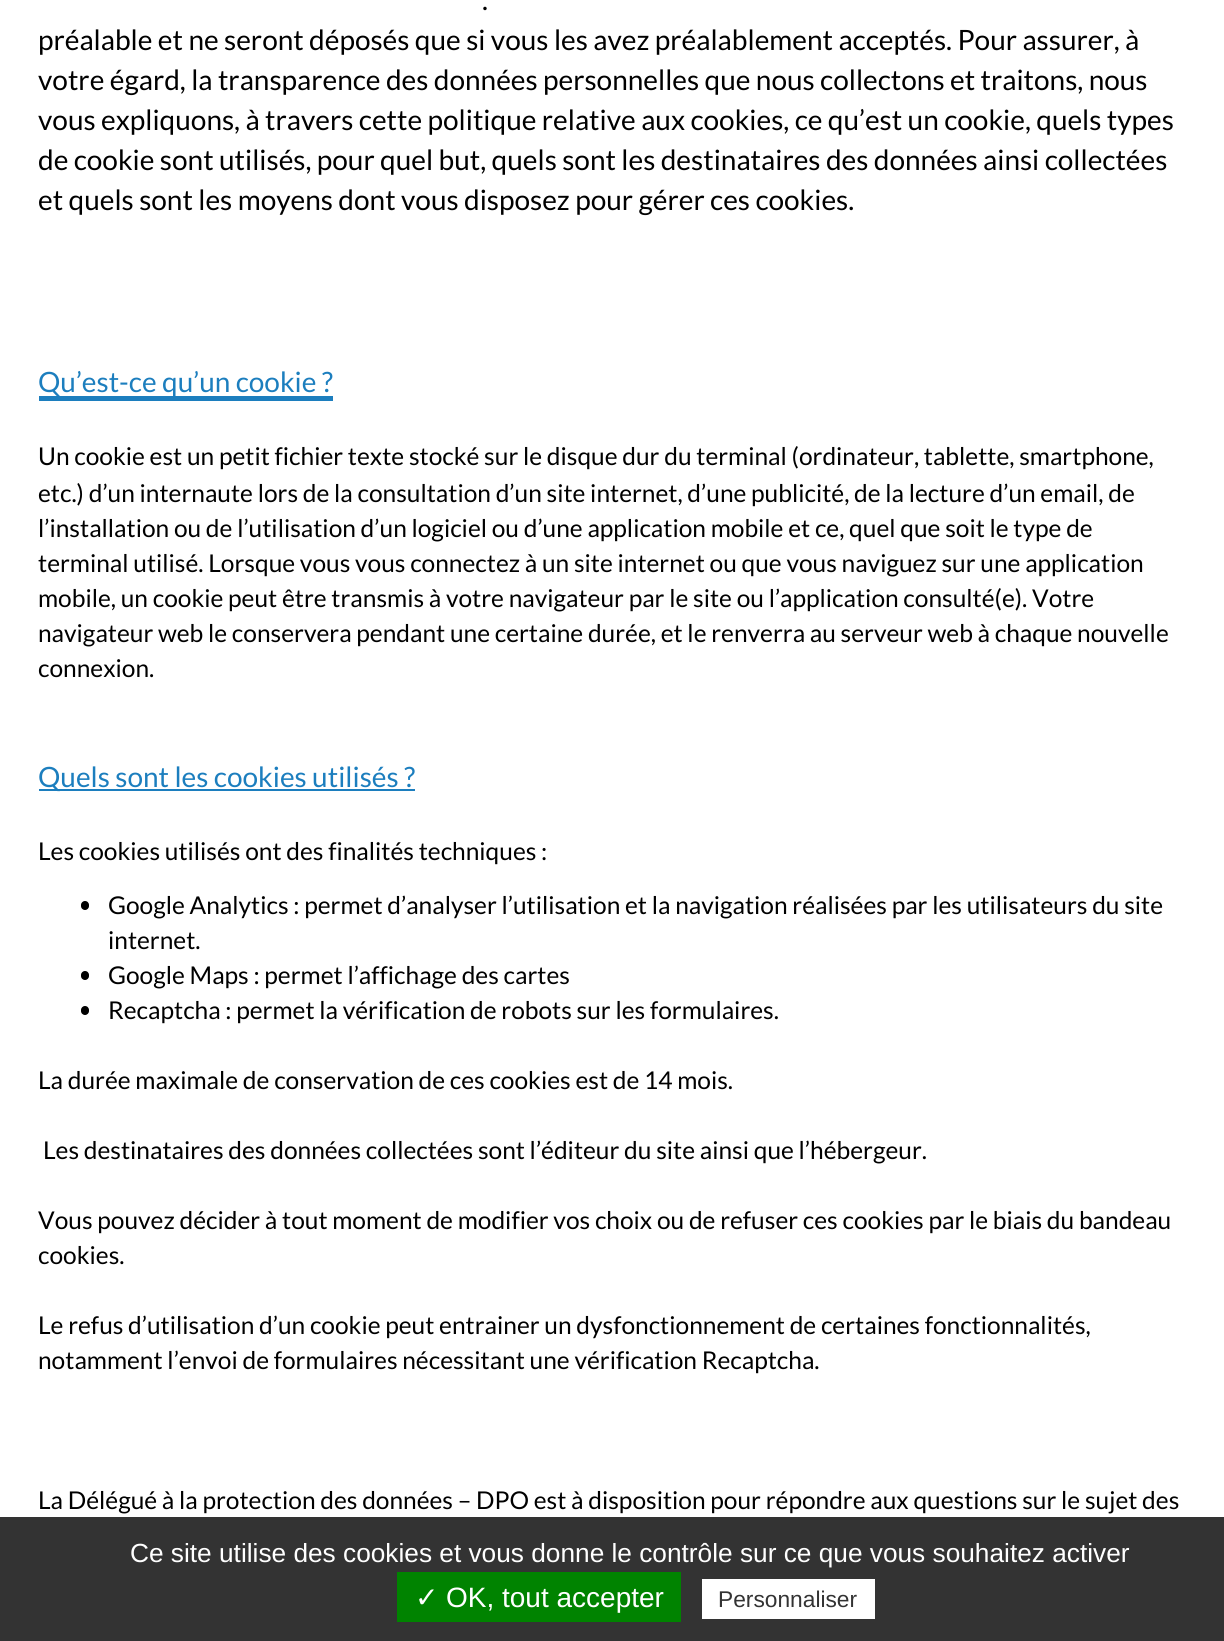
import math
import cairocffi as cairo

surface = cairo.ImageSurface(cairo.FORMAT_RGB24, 1224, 1641)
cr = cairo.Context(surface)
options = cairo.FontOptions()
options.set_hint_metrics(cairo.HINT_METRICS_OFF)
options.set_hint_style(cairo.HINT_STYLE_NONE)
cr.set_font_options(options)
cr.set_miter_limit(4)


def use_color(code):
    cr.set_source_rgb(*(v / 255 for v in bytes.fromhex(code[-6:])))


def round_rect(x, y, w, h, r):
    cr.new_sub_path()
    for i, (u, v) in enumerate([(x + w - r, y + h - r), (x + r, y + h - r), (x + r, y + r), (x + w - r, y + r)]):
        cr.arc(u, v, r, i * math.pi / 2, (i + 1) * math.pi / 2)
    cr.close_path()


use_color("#ffffff")
cr.paint()
cr.select_font_face("Lato")
cr.set_font_size(28)
use_color("#000000")
cr.move_to(482, 10)
cr.show_text(".")
cr.move_to(38, 50)
cr.show_text("préalable et ne seront déposés que si vous les avez préalablement acceptés. Pour assurer, à")
cr.move_to(38, 90)
cr.show_text("votre égard, la transparence des données personnelles que nous collectons et traitons, nous")
cr.move_to(38, 130)
cr.show_text("vous expliquons, à travers cette politique relative aux cookies, ce qu’est un cookie, quels types")
cr.move_to(38, 170)
cr.show_text("de cookie sont utilisés, pour quel but, quels sont les destinataires des données ainsi collectées")
cr.move_to(38, 210)
cr.show_text("et quels sont les moyens dont vous disposez pour gérer ces cookies.")
use_color("#1c7ebe")
cr.rectangle(39, 396, 294, 5)
cr.fill()
cr.move_to(38, 392)
cr.show_text("Qu’est-ce qu’un cookie ?")
cr.set_font_size(24.5)
use_color("#000000")
cr.move_to(38, 465)
cr.show_text("Un cookie est un petit fichier texte stocké sur le disque dur du terminal (ordinateur, tablette, smartphone,")
cr.move_to(38, 502)
cr.show_text("etc.) d’un internaute lors de la consultation d’un site internet, d’une publicité, de la lecture d’un email, de")
cr.move_to(38, 537)
cr.show_text("l’installation ou de l’utilisation d’un logiciel ou d’une application mobile et ce, quel que soit le type de")
cr.move_to(38, 572)
cr.show_text("terminal utilisé. Lorsque vous vous connectez à un site internet ou que vous naviguez sur une application")
cr.move_to(38, 607)
cr.show_text("mobile, un cookie peut être transmis à votre navigateur par le site ou l’application consulté(e). Votre")
cr.move_to(38, 642)
cr.show_text("navigateur web le conservera pendant une certaine durée, et le renverra au serveur web à chaque nouvelle")
cr.move_to(38, 677)
cr.show_text("connexion.")
use_color("#1c7ebe")
cr.rectangle(39, 789, 376, 2)
cr.fill()
cr.set_font_size(28)
cr.move_to(38, 787)
cr.show_text("Quels sont les cookies utilisés ?")
cr.set_font_size(24.5)
use_color("#000000")
cr.move_to(38, 860)
cr.show_text("Les cookies utilisés ont des finalités techniques :")
round_rect(81, 901, 8, 9, 4)
cr.fill()
cr.move_to(108, 914)
cr.show_text("Google Analytics : permet d’analyser l’utilisation et la navigation réalisées par les utilisateurs du site")
cr.move_to(108, 949)
cr.show_text("internet.")
round_rect(81, 971, 8, 9, 4)
cr.fill()
cr.move_to(108, 984)
cr.show_text("Google Maps : permet l’affichage des cartes")
round_rect(81, 1006, 8, 9, 4)
cr.fill()
cr.move_to(108, 1019)
cr.show_text("Recaptcha : permet la vérification de robots sur les formulaires.")
cr.move_to(38, 1089)
cr.show_text("La durée maximale de conservation de ces cookies est de 14 mois.")
cr.move_to(43, 1159)
cr.show_text("Les destinataires des données collectées sont l’éditeur du site ainsi que l’hébergeur.")
cr.move_to(38, 1229)
cr.show_text("Vous pouvez décider à tout moment de modifier vos choix ou de refuser ces cookies par le biais du bandeau")
cr.move_to(38, 1264)
cr.show_text("cookies.")
cr.move_to(38, 1334)
cr.show_text("Le refus d’utilisation d’un cookie peut entrainer un dysfonctionnement de certaines fonctionnalités,")
cr.move_to(38, 1369)
cr.show_text("notamment l’envoi de formulaires nécessitant une vérification Recaptcha.")
cr.move_to(38, 1509)
cr.show_text("La Délégué à la protection des données – DPO est à disposition pour répondre aux questions sur le sujet des")
use_color("#333333")
cr.rectangle(0, 1517, 1224, 124)
cr.fill()
cr.select_font_face("Liberation Sans")
cr.set_font_size(26.25)
use_color("#ffffff")
cr.move_to(130, 1562)
cr.show_text("Ce site utilise des cookies et vous donne le contrôle sur ce que vous souhaitez activer")
use_color("#008300")
cr.rectangle(397, 1572, 284, 50)
cr.fill()
cr.select_font_face("DejaVu Sans")
cr.set_font_size(28)
use_color("#ffffff")
cr.move_to(415, 1607)
cr.show_text("✓")
cr.select_font_face("Liberation Sans")
cr.move_to(446, 1607)
cr.show_text("OK, tout accepter")
cr.rectangle(702, 1579, 173, 40)
cr.fill()
cr.set_font_size(22.75)
use_color("#333333")
cr.move_to(718, 1607)
cr.show_text("Personnaliser")
surface.write_to_png("result.png")
